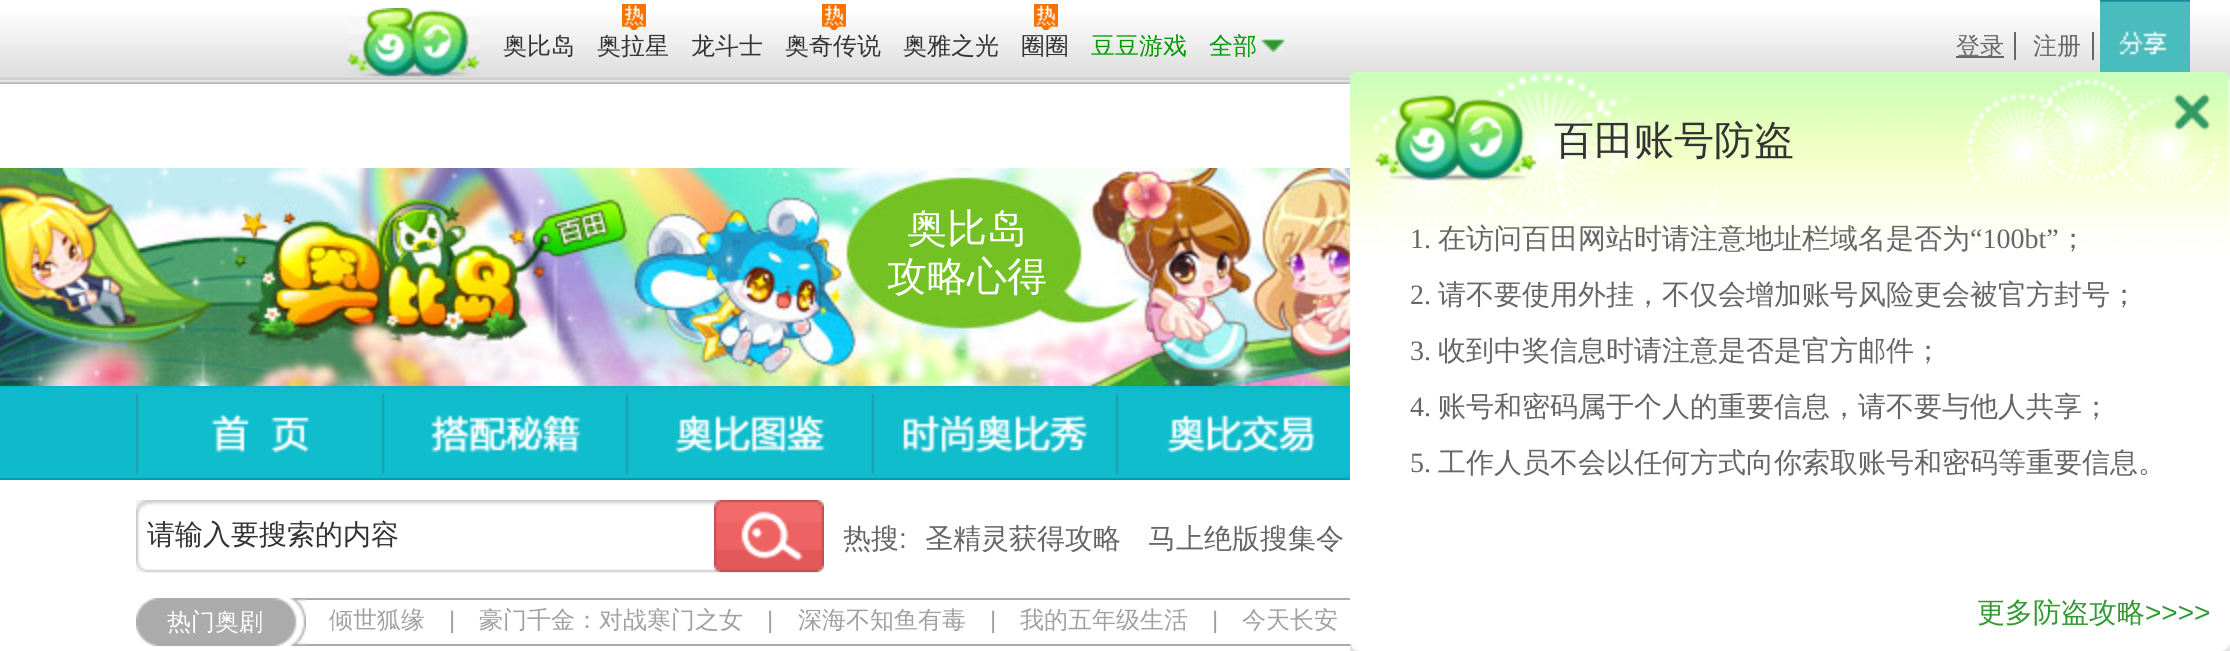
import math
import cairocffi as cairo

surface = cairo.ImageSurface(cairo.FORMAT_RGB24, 2230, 651)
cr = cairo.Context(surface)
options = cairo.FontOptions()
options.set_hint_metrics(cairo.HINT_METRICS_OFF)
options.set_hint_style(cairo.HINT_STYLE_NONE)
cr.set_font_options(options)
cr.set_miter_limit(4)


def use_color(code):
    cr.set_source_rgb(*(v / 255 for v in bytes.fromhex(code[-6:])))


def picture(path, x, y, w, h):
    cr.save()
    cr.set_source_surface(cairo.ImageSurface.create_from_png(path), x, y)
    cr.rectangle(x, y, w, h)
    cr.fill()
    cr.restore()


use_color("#ffffff")
cr.paint()
picture("img1.png", 0, 15, 2230, 69)
picture("img2.png", 347, 8, 134, 69)
cr.select_font_face("WenQuanYi Zen Hei Medium")
cr.set_font_size(24)
use_color("#333333")
cr.move_to(503, 54)
cr.show_text("奥比岛")
picture("img3.png", 622, 4, 24, 26)
cr.move_to(597, 54)
cr.show_text("奥拉星")
cr.move_to(691, 54)
cr.show_text("龙斗士")
picture("img3.png", 822, 4, 24, 26)
cr.move_to(785, 54)
cr.show_text("奥奇传说")
cr.move_to(903, 54)
cr.show_text("奥雅之光")
picture("img3.png", 1034, 4, 24, 26)
cr.move_to(1021, 54)
cr.show_text("圈圈")
use_color("#009900")
cr.move_to(1091, 54)
cr.show_text("豆豆游戏")
cr.move_to(1209, 54)
cr.show_text("全部")
picture("img4.png", 1260, 39, 25, 13)
use_color("#666666")
cr.rectangle(1956, 56, 48, 2)
cr.fill()
cr.move_to(1956, 54)
cr.show_text("登录")
cr.rectangle(2014, 32, 2, 28)
cr.fill()
cr.move_to(2033, 54)
cr.show_text("注册")
cr.rectangle(2092, 32, 2, 28)
cr.fill()
picture("img5.png", 2100, 0, 90, 2)
picture("img6.png", 2100, 2, 90, 70)
picture("img7.png", 0, 168, 1350, 218)
cr.set_font_size(40)
use_color("#ffffff")
cr.move_to(907, 242)
cr.show_text("奥比岛")
cr.move_to(887, 290)
cr.show_text("攻略心得")
use_color("#0ebacb")
cr.rectangle(0, 388, 1350, 90)
cr.fill()
use_color("#0eb4c5")
cr.rectangle(0, 386, 1350, 2)
cr.fill()
use_color("#009dad")
cr.rectangle(0, 478, 1350, 2)
cr.fill()
picture("img8.png", 136, 393, 1214, 82)
picture("img9.png", 136, 500, 688, 73)
cr.set_font_size(28)
use_color("#333333")
cr.move_to(147, 544)
cr.show_text("请输入要搜索的内容")
picture("img10.png", 714, 500, 110, 72)
cr.save()
cr.rectangle(844, 500, 1232, 76)
cr.clip()
use_color("#666666")
cr.move_to(843, 548)
cr.show_text("热搜")
cr.restore()
cr.select_font_face("Liberation Sans")
use_color("#666666")
cr.move_to(899, 548)
cr.show_text(":")
cr.select_font_face("WenQuanYi Zen Hei Medium")
cr.move_to(925, 548)
cr.show_text("圣精灵获得攻略")
cr.move_to(1148, 548)
cr.show_text("马上绝版搜集令")
use_color("#ababab")
cr.rectangle(306, 598, 1044, 2)
cr.fill()
cr.rectangle(306, 644, 1047, 2)
cr.fill()
picture("img11.png", 136, 598, 170, 48)
cr.set_font_size(24)
use_color("#ffffff")
cr.move_to(167, 630)
cr.show_text("热门奥剧")
use_color("#a1a1a1")
cr.move_to(329, 628)
cr.show_text("倾世狐缘")
cr.select_font_face("Liberation Sans")
cr.move_to(449, 628)
cr.show_text("|")
cr.select_font_face("WenQuanYi Zen Hei Medium")
cr.move_to(479, 628)
cr.show_text("豪门千金：对战寒门之女")
cr.select_font_face("Liberation Sans")
cr.move_to(767, 628)
cr.show_text("|")
cr.select_font_face("WenQuanYi Zen Hei Medium")
cr.move_to(798, 628)
cr.show_text("深海不知鱼有毒")
cr.select_font_face("Liberation Sans")
cr.move_to(990, 628)
cr.show_text("|")
cr.select_font_face("WenQuanYi Zen Hei Medium")
cr.move_to(1020, 628)
cr.show_text("我的五年级生活")
cr.select_font_face("Liberation Sans")
cr.move_to(1212, 628)
cr.show_text("|")
cr.select_font_face("WenQuanYi Zen Hei Medium")
cr.move_to(1242, 628)
cr.show_text("今天长安")
picture("img12.png", 1350, 72, 880, 579)
picture("img13.png", 2174, 92, 36, 38)
cr.set_font_size(40)
use_color("#333333")
cr.move_to(1554, 154)
cr.show_text("百田账号防盗")
cr.select_font_face("Liberation Serif")
cr.set_font_size(28)
use_color("#666666")
cr.move_to(1410, 248)
cr.show_text("1.")
cr.select_font_face("WenQuanYi Zen Hei Medium")
cr.move_to(1438, 248)
cr.show_text("在访问百田网站时请注意地址栏域名是否为")
cr.select_font_face("Liberation Serif")
cr.move_to(1970, 248)
cr.show_text("“100bt”")
cr.select_font_face("WenQuanYi Zen Hei Medium")
cr.move_to(2059, 248)
cr.show_text("；")
cr.select_font_face("Liberation Serif")
cr.move_to(1410, 304)
cr.show_text("2.")
cr.select_font_face("WenQuanYi Zen Hei Medium")
cr.move_to(1438, 304)
cr.show_text("请不要使用外挂，不仅会增加账号风险更会被官方封号；")
cr.select_font_face("Liberation Serif")
cr.move_to(1410, 360)
cr.show_text("3.")
cr.select_font_face("WenQuanYi Zen Hei Medium")
cr.move_to(1438, 360)
cr.show_text("收到中奖信息时请注意是否是官方邮件；")
cr.select_font_face("Liberation Serif")
cr.move_to(1410, 416)
cr.show_text("4.")
cr.select_font_face("WenQuanYi Zen Hei Medium")
cr.move_to(1438, 416)
cr.show_text("账号和密码属于个人的重要信息，请不要与他人共享；")
cr.select_font_face("Liberation Serif")
cr.move_to(1410, 472)
cr.show_text("5.")
cr.select_font_face("WenQuanYi Zen Hei Medium")
cr.move_to(1438, 472)
cr.show_text("工作人员不会以任何方式向你索取账号和密码等重要信息。")
use_color("#339933")
cr.move_to(1977, 622)
cr.show_text("更多防盗攻略")
cr.select_font_face("Liberation Sans")
cr.move_to(2145, 622)
cr.show_text(">>>>")
surface.write_to_png("result.png")
